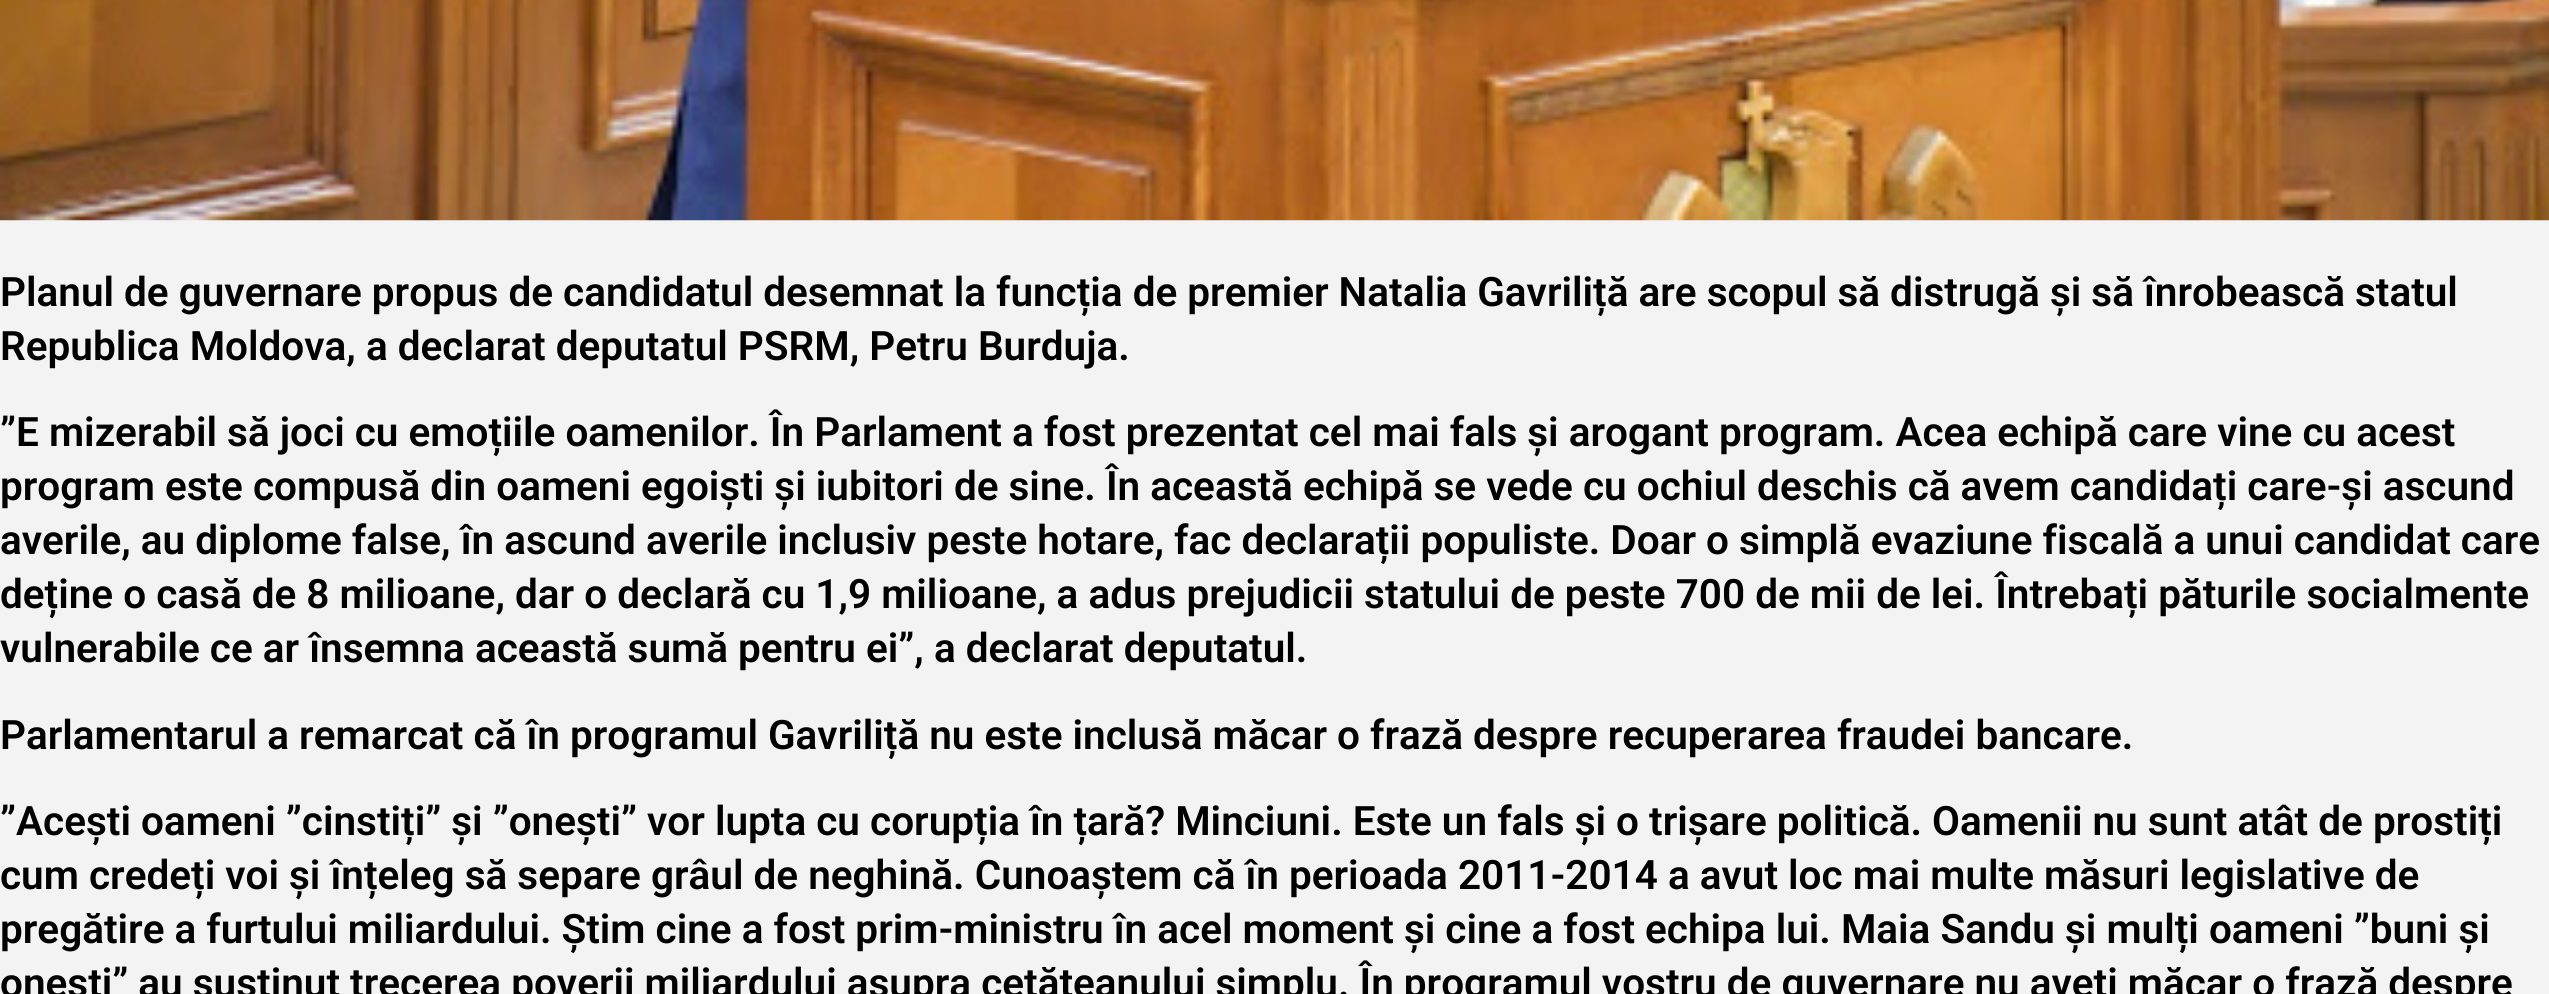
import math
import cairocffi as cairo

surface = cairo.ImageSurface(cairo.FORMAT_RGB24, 2549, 994)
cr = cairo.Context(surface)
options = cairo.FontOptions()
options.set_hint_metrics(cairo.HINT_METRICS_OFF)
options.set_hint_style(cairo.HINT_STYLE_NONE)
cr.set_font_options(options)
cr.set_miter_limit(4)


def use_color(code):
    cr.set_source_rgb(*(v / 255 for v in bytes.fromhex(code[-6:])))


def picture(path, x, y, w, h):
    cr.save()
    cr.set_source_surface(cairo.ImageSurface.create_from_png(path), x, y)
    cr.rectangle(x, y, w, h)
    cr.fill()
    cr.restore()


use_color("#f3f3f3")
cr.paint()
picture("img1.png", 0, 0, 2549, 221)
cr.select_font_face("Roboto SemiBold")
cr.set_font_size(40.5)
use_color("#000000")
cr.move_to(0, 306)
cr.show_text("Planul de guvernare propus de candidatul desemnat la funcția de premier Natalia Gavriliță are scopul să distrugă și să înrobească statul")
cr.move_to(0, 360)
cr.show_text("Republica Moldova, a declarat deputatul PSRM, Petru Burduja.")
cr.move_to(0, 446)
cr.show_text("”E mizerabil să joci cu emoțiile oamenilor. În Parlament a fost prezentat cel mai fals și arogant program. Acea echipă care vine cu acest")
cr.move_to(0, 500)
cr.show_text("program este compusă din oameni egoiști și iubitori de sine. În această echipă se vede cu ochiul deschis că avem candidați care-și ascund")
cr.move_to(0, 554)
cr.show_text("averile, au diplome false, în ascund averile inclusiv peste hotare, fac declarații populiste. Doar o simplă evaziune fiscală a unui candidat care")
cr.move_to(0, 608)
cr.show_text("deține o casă de 8 milioane, dar o declară cu 1,9 milioane, a adus prejudicii statului de peste 700 de mii de lei. Întrebați păturile socialmente")
cr.move_to(0, 662)
cr.show_text("vulnerabile ce ar însemna această sumă pentru ei”, a declarat deputatul.")
cr.move_to(0, 749)
cr.show_text("Parlamentarul a remarcat că în programul Gavriliță nu este inclusă măcar o frază despre recuperarea fraudei bancare.")
cr.move_to(0, 835)
cr.show_text("”Acești oameni ”cinstiți” și ”onești” vor lupta cu corupția în țară? Minciuni. Este un fals și o trișare politică. Oamenii nu sunt atât de prostiți")
cr.move_to(0, 889)
cr.show_text("cum credeți voi și înțeleg să separe grâul de neghină. Cunoaștem că în perioada 2011-2014 a avut loc mai multe măsuri legislative de")
cr.move_to(0, 943)
cr.show_text("pregătire a furtului miliardului. Știm cine a fost prim-ministru în acel moment și cine a fost echipa lui. Maia Sandu și mulți oameni ”buni și")
cr.move_to(0, 997)
cr.show_text("onești” au susținut trecerea poverii miliardului asupra cetățeanului simplu. În programul vostru de guvernare nu aveți măcar o frază despre")
surface.write_to_png("result.png")
